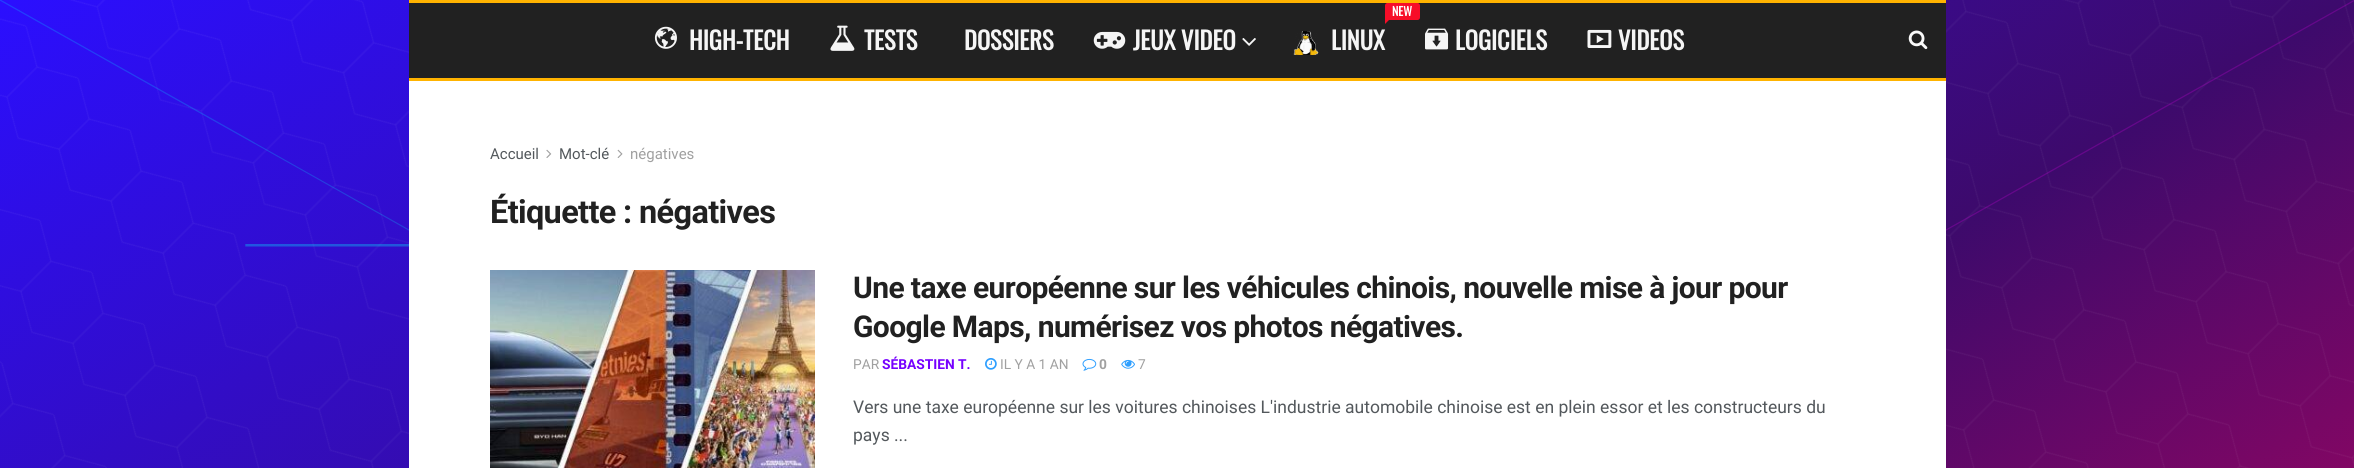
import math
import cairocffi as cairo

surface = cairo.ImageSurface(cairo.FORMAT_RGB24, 2354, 468)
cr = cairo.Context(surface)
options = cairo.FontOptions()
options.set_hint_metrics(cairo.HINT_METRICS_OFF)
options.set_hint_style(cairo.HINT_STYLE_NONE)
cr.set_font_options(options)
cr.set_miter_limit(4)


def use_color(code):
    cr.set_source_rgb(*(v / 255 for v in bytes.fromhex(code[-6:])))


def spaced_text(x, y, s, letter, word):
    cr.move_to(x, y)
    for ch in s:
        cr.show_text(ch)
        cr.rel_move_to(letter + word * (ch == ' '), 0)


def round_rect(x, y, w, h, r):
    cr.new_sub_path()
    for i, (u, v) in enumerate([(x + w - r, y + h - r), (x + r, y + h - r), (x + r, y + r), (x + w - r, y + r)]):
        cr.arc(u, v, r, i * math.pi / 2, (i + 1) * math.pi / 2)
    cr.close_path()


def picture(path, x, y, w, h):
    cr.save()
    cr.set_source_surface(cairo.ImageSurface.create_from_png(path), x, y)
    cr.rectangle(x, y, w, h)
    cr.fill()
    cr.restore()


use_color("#ffffff")
cr.paint()
picture("img1.png", 0, 0, 2354, 468)
use_color("#212121")
cr.rectangle(409, 3, 1537, 75)
cr.fill()
use_color("#ffb300")
cr.rectangle(409, 0, 1537, 3)
cr.fill()
cr.rectangle(409, 78, 1537, 3)
cr.fill()
picture("img2.png", 654, 26, 23, 23)
cr.select_font_face("Oswald", cairo.FONT_SLANT_NORMAL, cairo.FONT_WEIGHT_BOLD)
cr.set_font_size(24.5)
use_color("#f5f5f5")
cr.move_to(689, 50)
cr.show_text("HIGH-TECH")
picture("img3.png", 830, 25, 25, 26)
cr.move_to(864, 50)
cr.show_text("TESTS")
cr.move_to(964, 50)
cr.show_text("DOSSIERS")
picture("img4.png", 1093, 31, 33, 18)
cr.move_to(1133, 50)
cr.show_text("JEUX VIDEO")
picture("img5.png", 1242, 38, 14, 8)
use_color("#f70d28")
round_rect(1385, 3, 35, 17, 2.5)
cr.fill()
cr.set_font_size(12)
use_color("#ffffff")
cr.move_to(1392, 16)
cr.show_text("NEW")
use_color("#f70d28")
cr.new_path()
cr.move_to(1385, 24)
cr.line_to(1385, 16)
cr.line_to(1389, 20)
cr.close_path()
cr.fill()
picture("img6.png", 1293, 31, 26, 24)
cr.set_font_size(24.5)
use_color("#f5f5f5")
cr.move_to(1331, 50)
cr.show_text("LINUX")
picture("img7.png", 1425, 28, 24, 22)
cr.move_to(1455, 50)
cr.show_text("LOGICIELS")
picture("img8.png", 1587, 29, 25, 19)
cr.move_to(1618, 50)
cr.show_text("VIDEOS")
picture("img9.png", 1908, 30, 20, 20)
use_color("#ffffff")
cr.rectangle(409, 81, 1537, 387)
cr.fill()
cr.select_font_face("Roboto")
cr.set_font_size(15)
use_color("#53585c")
cr.move_to(490, 159)
cr.show_text("Accueil")
picture("img10.png", 546, 149, 6, 9)
cr.move_to(559, 159)
cr.show_text("Mot-clé")
picture("img11.png", 617, 149, 6, 9)
use_color("#a0a0a0")
cr.move_to(630, 159)
cr.show_text("négatives")
cr.select_font_face("Roboto", cairo.FONT_SLANT_NORMAL, cairo.FONT_WEIGHT_BOLD)
cr.set_font_size(32.5)
use_color("#212121")
spaced_text(490, 223, "Étiquette : négatives", -0.65, 0)
picture("img12.png", 490, 270, 325, 198)
cr.set_font_size(30)
spaced_text(853, 298, "Une taxe européenne sur les véhicules chinois, nouvelle mise à jour pour", -0.6, 0)
spaced_text(853, 337, "Google Maps, numérisez vos photos négatives.", -0.6, 0)
cr.select_font_face("Roboto")
cr.set_font_size(13.75)
use_color("#a0a0a0")
cr.move_to(853, 369)
cr.show_text("PAR")
cr.select_font_face("Roboto", cairo.FONT_SLANT_NORMAL, cairo.FONT_WEIGHT_BOLD)
use_color("#7600ff")
cr.move_to(882, 369)
cr.show_text("SÉBASTIEN T.")
picture("img13.png", 985, 358, 12, 12)
cr.select_font_face("Roboto")
use_color("#a0a0a0")
cr.move_to(1000, 369)
cr.show_text("IL Y A 1 AN")
picture("img14.png", 1082, 358, 15, 13)
cr.select_font_face("Roboto", cairo.FONT_SLANT_NORMAL, cairo.FONT_WEIGHT_BOLD)
cr.move_to(1099, 369)
cr.show_text("0")
picture("img15.png", 1121, 359, 14, 10)
cr.select_font_face("Roboto")
cr.move_to(1138, 369)
cr.show_text("7")
cr.set_font_size(17.5)
use_color("#53585c")
cr.move_to(853, 413)
cr.show_text("Vers une taxe européenne sur les voitures chinoises L'industrie automobile chinoise est en plein essor et les constructeurs du")
cr.move_to(853, 441)
cr.show_text("pays ...")
surface.write_to_png("result.png")
